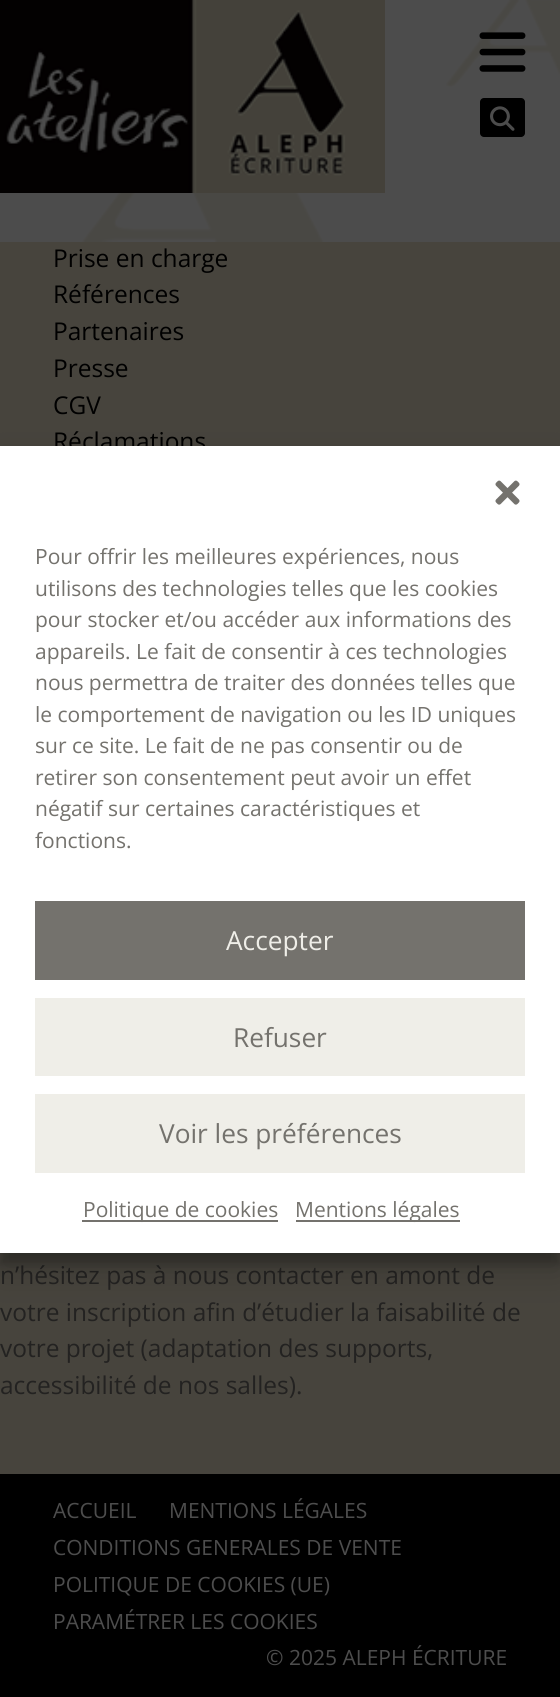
import math
import cairocffi as cairo

surface = cairo.ImageSurface(cairo.FORMAT_RGB24, 560, 1697)
cr = cairo.Context(surface)
options = cairo.FontOptions()
options.set_hint_metrics(cairo.HINT_METRICS_OFF)
options.set_hint_style(cairo.HINT_STYLE_NONE)
cr.set_font_options(options)
cr.set_miter_limit(4)


def use_color(code):
    cr.set_source_rgb(*(v / 255 for v in bytes.fromhex(code[-6:])))


def round_rect(x, y, w, h, r):
    cr.new_sub_path()
    for i, (u, v) in enumerate([(x + w - r, y + h - r), (x + r, y + h - r), (x + r, y + r), (x + w - r, y + r)]):
        cr.arc(u, v, r, i * math.pi / 2, (i + 1) * math.pi / 2)
    cr.close_path()


def shadow(x, y, w, h, r, blur, alpha):
    cr.push_group_with_content(cairo.CONTENT_ALPHA)
    cr.set_operator(cairo.OPERATOR_SOURCE)
    for i in range(15, -16, -2):
        e = blur * i / 6
        if min(w, h) + 2 * e > 0:
            cr.set_source_rgba(0, 0, 0, alpha * math.erfc((i - 1) / 8.5) / 2)
            round_rect(x - e, y - e, w + 2 * e, h + 2 * e, max(0, min(r + e + blur * .6, min(w, h) / 2 + e)))
            cr.fill()
    cr.mask(cr.pop_group())


def picture(path, x, y, w, h):
    cr.save()
    cr.set_source_surface(cairo.ImageSurface.create_from_png(path), x, y)
    cr.rectangle(x, y, w, h)
    cr.fill()
    cr.restore()


use_color("#47443d")
cr.paint()
picture("img1.png", 0, 0, 560, 242)
picture("img2.png", 0, 0, 385, 193)
picture("img3.png", 479, 32, 47, 40)
use_color("#000000")
round_rect(480, 98, 45, 39, 4)
cr.fill()
picture("img4.png", 490, 106, 25, 25)
cr.select_font_face("Open Sans")
cr.set_font_size(24.5)
cr.move_to(53, 267)
cr.show_text("Prise en charge")
cr.move_to(53, 303)
cr.show_text("Références")
cr.move_to(53, 340)
cr.show_text("Partenaires")
cr.move_to(53, 377)
cr.show_text("Presse")
cr.move_to(53, 414)
cr.show_text("CGV")
cr.move_to(53, 450)
cr.show_text("Réclamations")
use_color("#232221")
cr.move_to(0, 1284)
cr.show_text("n’hésitez pas à nous contacter en amont de")
cr.move_to(0, 1321)
cr.show_text("votre inscription afin d’étudier la faisabilité de")
cr.move_to(0, 1357)
cr.show_text("votre projet (adaptation des supports,")
cr.move_to(0, 1394)
cr.show_text("accessibilité de nos salles).")
use_color("#000000")
cr.rectangle(0, 1474, 560, 223)
cr.fill()
cr.set_font_size(21)
use_color("#4d4d4d")
cr.move_to(53, 1518)
cr.show_text("ACCUEIL")
cr.move_to(169, 1518)
cr.show_text("MENTIONS LÉGALES")
cr.move_to(53, 1555)
cr.show_text("CONDITIONS GENERALES DE VENTE")
cr.move_to(53, 1592)
cr.show_text("POLITIQUE DE COOKIES (UE)")
cr.move_to(53, 1629)
cr.show_text("PARAMÉTRER LES COOKIES")
cr.move_to(266, 1665)
cr.show_text("© 2025 ALEPH ÉCRITURE")
use_color("#000000")
shadow(0, 457, 560, 807, 0, 5, 0.23)
shadow(0, 464, 560, 807, 0, 17.5, 0.19)
use_color("#ffffff")
cr.rectangle(0, 446, 560, 807)
cr.fill()
picture("img5.png", 495, 480, 25, 25)
use_color("#74726d")
cr.move_to(35, 564)
cr.show_text("Pour offrir les meilleures expériences, nous")
cr.move_to(35, 596)
cr.show_text("utilisons des technologies telles que les cookies")
cr.move_to(35, 627)
cr.show_text("pour stocker et/ou accéder aux informations des")
cr.move_to(35, 659)
cr.show_text("appareils. Le fait de consentir à ces technologies")
cr.move_to(35, 690)
cr.show_text("nous permettra de traiter des données telles que")
cr.move_to(35, 722)
cr.show_text("le comportement de navigation ou les ID uniques")
cr.move_to(35, 753)
cr.show_text("sur ce site. Le fait de ne pas consentir ou de")
cr.move_to(35, 785)
cr.show_text("retirer son consentement peut avoir un effet")
cr.move_to(35, 816)
cr.show_text("négatif sur certaines caractéristiques et")
cr.move_to(35, 848)
cr.show_text("fonctions.")
cr.rectangle(35, 901, 490, 79)
cr.fill()
cr.set_font_size(26.25)
use_color("#efeee8")
cr.move_to(226, 950)
cr.show_text("Accepter")
cr.rectangle(35, 998, 490, 78)
cr.fill()
use_color("#74726d")
cr.move_to(233, 1047)
cr.show_text("Refuser")
use_color("#efeee8")
cr.rectangle(35, 1094, 490, 79)
cr.fill()
use_color("#74726d")
cr.move_to(159, 1143)
cr.show_text("Voir les préférences")
cr.rectangle(82, 1220, 196, 2)
cr.fill()
cr.set_font_size(21)
cr.move_to(83, 1217)
cr.show_text("Politique de cookies")
cr.rectangle(296, 1220, 164, 2)
cr.fill()
cr.move_to(295, 1217)
cr.show_text("Mentions légales")
surface.write_to_png("result.png")
